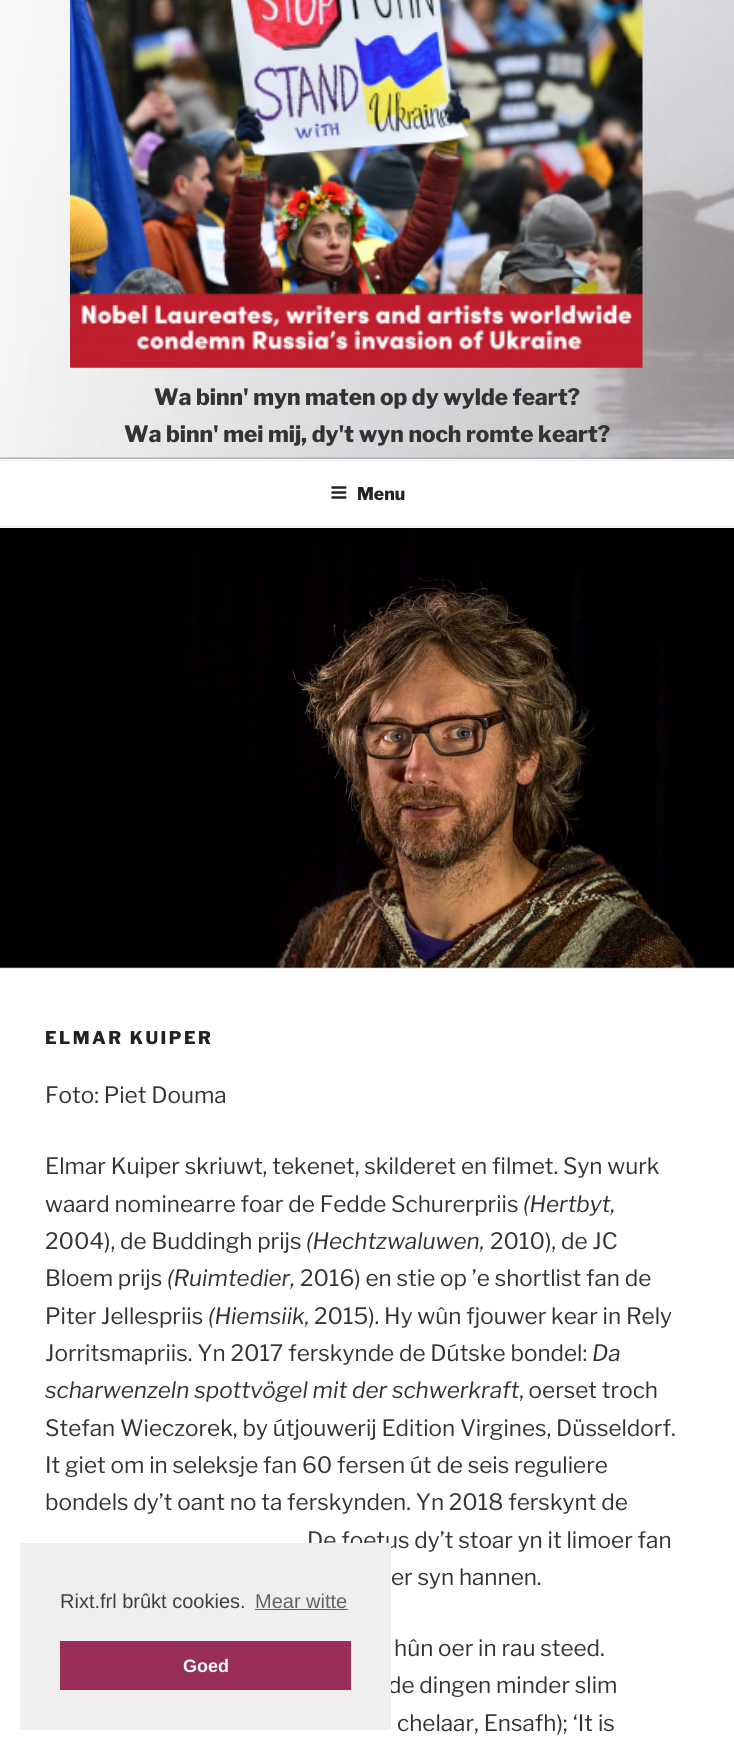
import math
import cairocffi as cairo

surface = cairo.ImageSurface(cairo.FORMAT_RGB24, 734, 1749)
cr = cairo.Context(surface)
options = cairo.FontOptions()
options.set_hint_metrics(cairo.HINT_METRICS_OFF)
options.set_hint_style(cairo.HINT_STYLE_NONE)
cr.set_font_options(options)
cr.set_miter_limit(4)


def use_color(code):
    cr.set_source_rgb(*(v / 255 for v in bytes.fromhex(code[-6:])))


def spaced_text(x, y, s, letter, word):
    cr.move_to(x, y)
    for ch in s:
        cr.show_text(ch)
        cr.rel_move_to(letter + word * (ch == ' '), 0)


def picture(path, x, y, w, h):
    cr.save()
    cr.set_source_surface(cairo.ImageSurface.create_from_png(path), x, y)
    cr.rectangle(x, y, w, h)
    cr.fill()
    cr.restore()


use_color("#ffffff")
cr.paint()
use_color("#fafafa")
cr.rectangle(0, 459, 734, 1)
cr.fill()
picture("img1.png", 0, 0, 734, 459)
picture("img2.png", 70, 0, 573, 368)
cr.select_font_face("Libre Franklin ExtraBold")
cr.set_font_size(22.5)
use_color("#333333")
cr.move_to(154, 405)
cr.show_text("Wa binn' myn maten op dy wylde feart?")
cr.move_to(124, 442)
cr.show_text("Wa binn' mei mij, dy't wyn noch romte keart?")
use_color("#eeeeee")
cr.rectangle(0, 460, 734, 1)
cr.fill()
cr.rectangle(0, 526, 734, 1)
cr.fill()
picture("img3.png", 331, 486, 16, 13)
cr.set_font_size(17.5)
use_color("#222222")
cr.move_to(357, 500)
cr.show_text("Menu")
use_color("#eeeeee")
cr.rectangle(0, 968, 734, 1)
cr.fill()
picture("img4.png", 0, 528, 734, 440)
use_color("#222222")
spaced_text(45, 1044, "ELMAR KUIPER", 2.5, 0)
cr.select_font_face("Libre Franklin")
cr.set_font_size(22.5)
use_color("#333333")
cr.move_to(45, 1103)
cr.show_text("Foto: Piet Douma")
cr.move_to(45, 1174)
cr.show_text("Elmar Kuiper skriuwt, tekenet, skilderet en filmet. Syn wurk")
cr.move_to(45, 1212)
cr.show_text("waard nominearre foar de Fedde Schurerpriis")
cr.select_font_face("Libre Franklin", cairo.FONT_SLANT_ITALIC)
cr.move_to(523, 1212)
cr.show_text("(Hertbyt,")
cr.select_font_face("Libre Franklin")
cr.move_to(45, 1249)
cr.show_text("2004), de Buddingh prijs")
cr.select_font_face("Libre Franklin", cairo.FONT_SLANT_ITALIC)
cr.move_to(306, 1249)
cr.show_text("(Hechtzwaluwen,")
cr.select_font_face("Libre Franklin")
cr.move_to(490, 1249)
cr.show_text("2010), de JC")
cr.move_to(45, 1286)
cr.show_text("Bloem prijs")
cr.select_font_face("Libre Franklin", cairo.FONT_SLANT_ITALIC)
cr.move_to(167, 1286)
cr.show_text("(Ruimtedier,")
cr.select_font_face("Libre Franklin")
cr.move_to(300, 1286)
cr.show_text("2016) en stie op ’e shortlist fan de")
cr.move_to(45, 1324)
cr.show_text("Piter Jellespriis")
cr.select_font_face("Libre Franklin", cairo.FONT_SLANT_ITALIC)
cr.move_to(208, 1324)
cr.show_text("(Hiemsiik,")
cr.select_font_face("Libre Franklin")
cr.move_to(314, 1324)
cr.show_text("2015). Hy wûn fjouwer kear in Rely")
cr.move_to(45, 1361)
cr.show_text("Jorritsmapriis. Yn 2017 ferskynde de Dútske bondel:")
cr.select_font_face("Libre Franklin", cairo.FONT_SLANT_ITALIC)
cr.move_to(592, 1361)
cr.show_text("Da")
cr.move_to(45, 1398)
cr.show_text("scharwenzeln spottvögel mit der schwerkraft")
cr.select_font_face("Libre Franklin")
cr.move_to(519, 1398)
cr.show_text(", oerset troch")
cr.move_to(45, 1436)
cr.show_text("Stefan Wieczorek, by útjouwerij Edition Virgines, Düsseldorf.")
cr.move_to(45, 1473)
cr.show_text("It giet om in seleksje fan 60 fersen út de seis reguliere")
cr.move_to(45, 1510)
cr.show_text("bondels dy’t oant no ta ferskynden. Yn 2018 ferskynt de")
cr.move_to(307, 1548)
cr.show_text("De foetus dy’t stoar yn it limoer fan")
cr.move_to(391, 1585)
cr.show_text("er syn hannen.")
cr.move_to(394, 1656)
cr.show_text("hûn oer in rau steed.")
cr.move_to(388, 1693)
cr.show_text("de dingen minder slim")
cr.move_to(397, 1731)
cr.show_text("chelaar, Ensafh); ‘It is")
use_color("#efefef")
cr.rectangle(20, 1543, 371, 187)
cr.fill()
cr.select_font_face("Liberation Sans")
cr.set_font_size(20)
use_color("#404040")
cr.move_to(60, 1608)
cr.show_text("Rixt.frl brûkt cookies.")
use_color("#636363")
cr.move_to(255, 1608)
cr.show_text("Mear witte")
cr.rectangle(255, 1609, 93, 1)
cr.fill()
use_color("#992e58")
cr.rectangle(60, 1641, 291, 49)
cr.fill()
cr.select_font_face("Liberation Sans", cairo.FONT_SLANT_NORMAL, cairo.FONT_WEIGHT_BOLD)
cr.set_font_size(18)
use_color("#ffffff")
cr.move_to(183, 1672)
cr.show_text("Goed")
surface.write_to_png("result.png")
